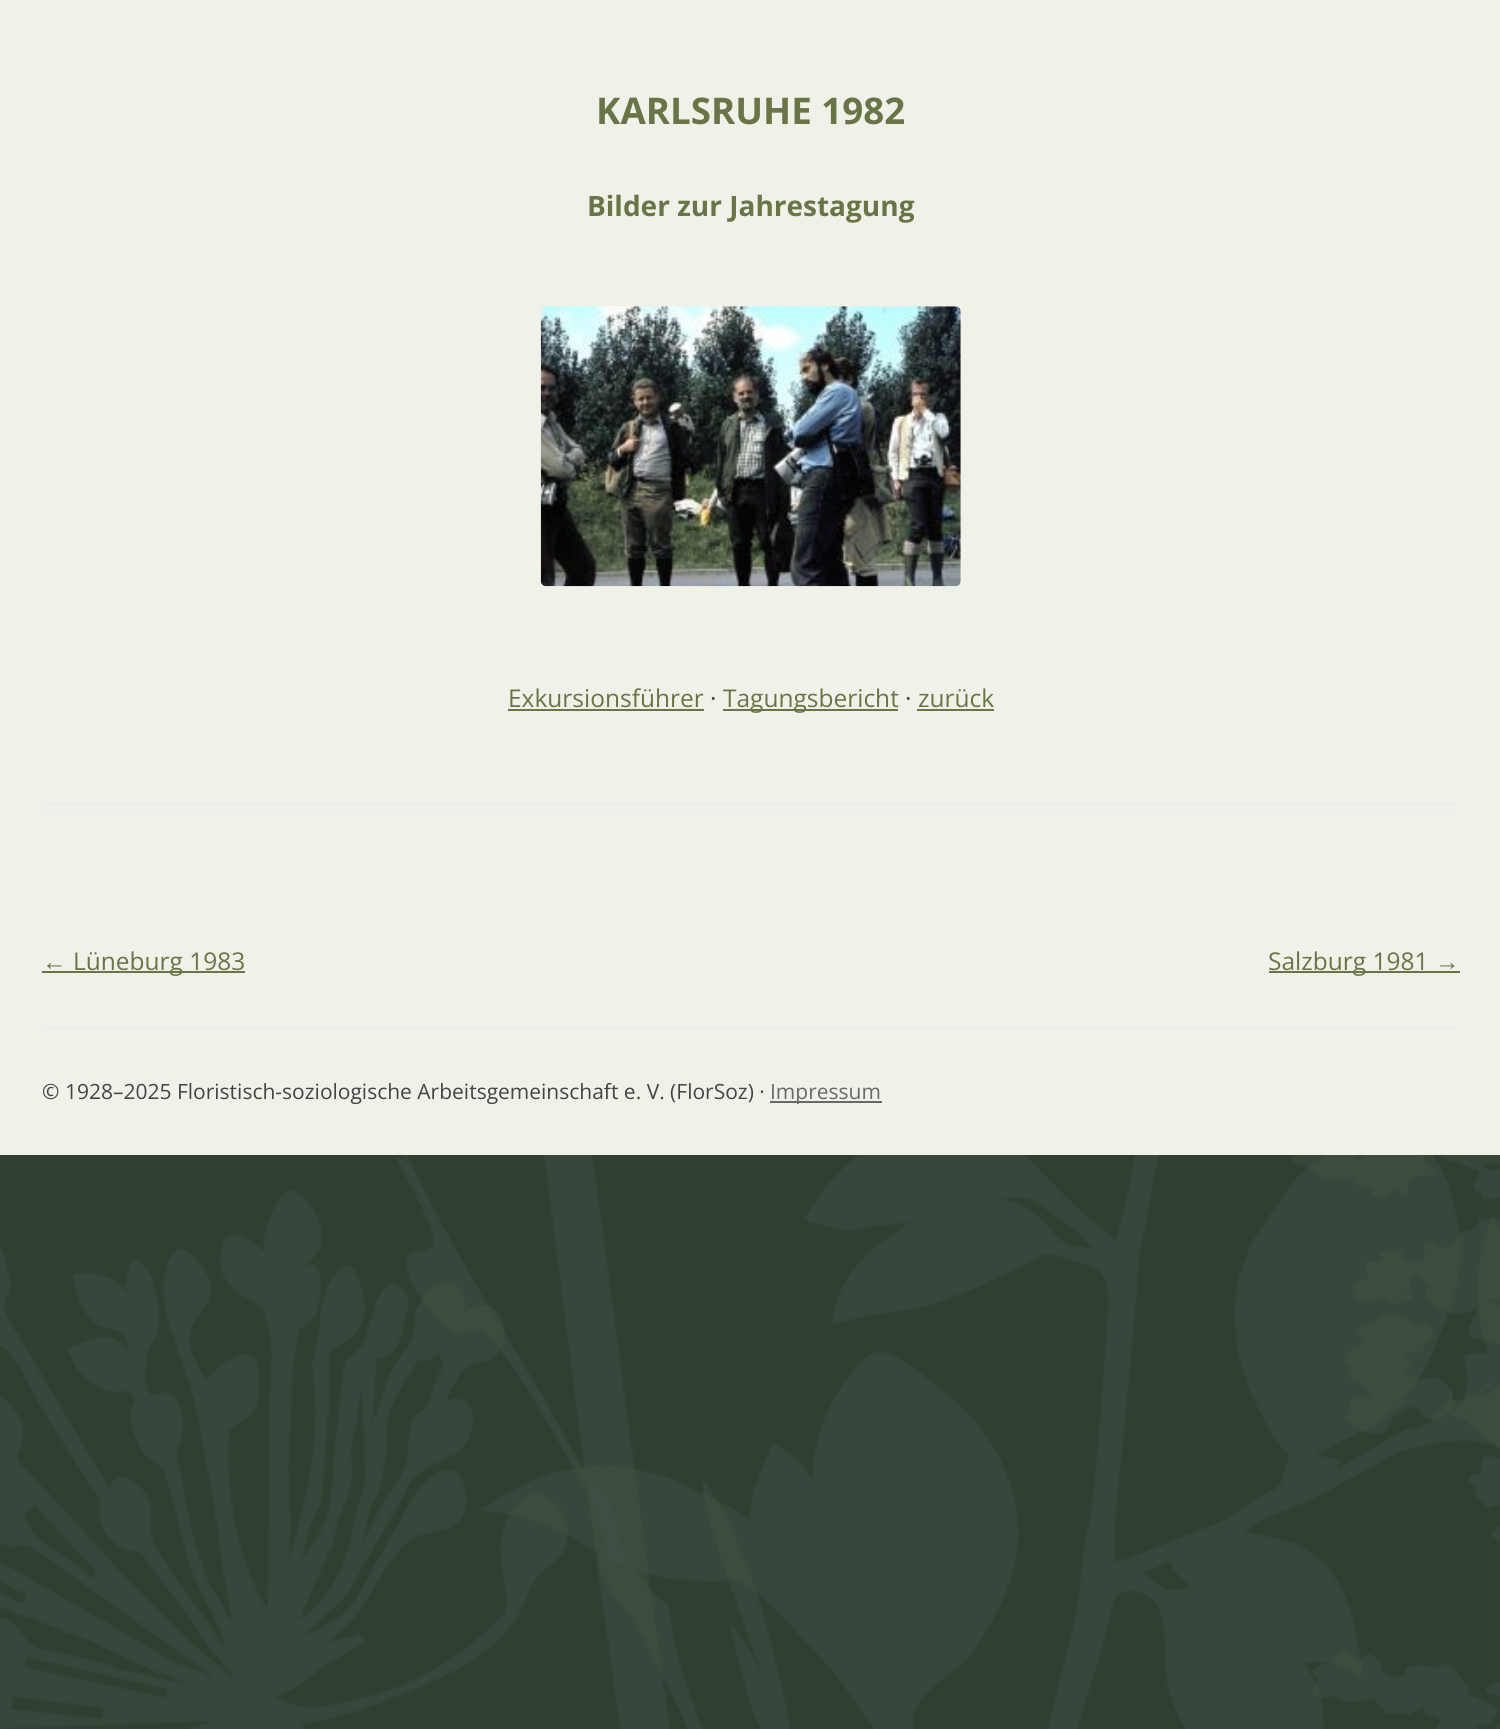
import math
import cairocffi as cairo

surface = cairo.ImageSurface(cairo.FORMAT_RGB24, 1500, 1729)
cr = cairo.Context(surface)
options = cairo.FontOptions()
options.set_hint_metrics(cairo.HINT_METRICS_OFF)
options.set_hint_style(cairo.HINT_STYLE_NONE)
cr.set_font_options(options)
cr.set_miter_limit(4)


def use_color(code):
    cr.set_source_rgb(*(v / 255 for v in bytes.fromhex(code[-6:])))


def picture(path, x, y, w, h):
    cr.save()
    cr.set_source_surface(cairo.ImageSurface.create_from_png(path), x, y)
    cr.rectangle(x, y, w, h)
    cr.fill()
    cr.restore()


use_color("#ffffff")
cr.paint()
picture("img1.png", 0, 1155, 1500, 574)
use_color("#f0f2e9")
cr.rectangle(0, 0, 1500, 1155)
cr.fill()
use_color("#ededed")
cr.rectangle(42, 803, 1418, 2)
cr.fill()
cr.rectangle(42, 809, 1418, 2)
cr.fill()
cr.select_font_face("Open Sans", cairo.FONT_SLANT_NORMAL, cairo.FONT_WEIGHT_BOLD)
cr.set_font_size(36.75)
use_color("#697546")
cr.move_to(596, 124)
cr.show_text("KARLSRUHE 1982")
cr.set_font_size(28)
cr.move_to(587, 216)
cr.show_text("Bilder zur Jahrestagung")
picture("img2.png", 540, 306, 421, 281)
cr.select_font_face("Open Sans")
cr.set_font_size(24.5)
cr.move_to(508, 707)
cr.show_text("Exkursionsführer")
cr.rectangle(508, 709, 196, 2)
cr.fill()
use_color("#444444")
cr.move_to(710, 707)
cr.show_text("·")
use_color("#697546")
cr.rectangle(723, 709, 175, 2)
cr.fill()
cr.move_to(723, 707)
cr.show_text("Tagungsbericht")
use_color("#444444")
cr.move_to(905, 707)
cr.show_text("·")
use_color("#697546")
cr.move_to(918, 707)
cr.show_text("zurück")
cr.rectangle(917, 709, 77, 2)
cr.fill()
cr.select_font_face("Liberation Sans")
cr.move_to(42, 970)
cr.show_text("←")
cr.rectangle(42, 971, 203, 2)
cr.fill()
cr.select_font_face("Open Sans")
cr.move_to(73, 970)
cr.show_text("Lüneburg 1983")
cr.rectangle(1269, 971, 191, 2)
cr.fill()
cr.move_to(1268, 970)
cr.show_text("Salzburg 1981")
cr.select_font_face("Liberation Sans")
cr.move_to(1435, 970)
cr.show_text("→")
use_color("#ededed")
cr.rectangle(42, 1027, 1418, 2)
cr.fill()
cr.select_font_face("Open Sans")
cr.set_font_size(21)
use_color("#444444")
cr.move_to(42, 1099)
cr.show_text("© 1928–2025 Floristisch-soziologische Arbeitsgemeinschaft e. V. (FlorSoz) ·")
use_color("#686868")
cr.rectangle(770, 1101, 112, 2)
cr.fill()
cr.move_to(770, 1099)
cr.show_text("Impressum")
surface.write_to_png("result.png")
